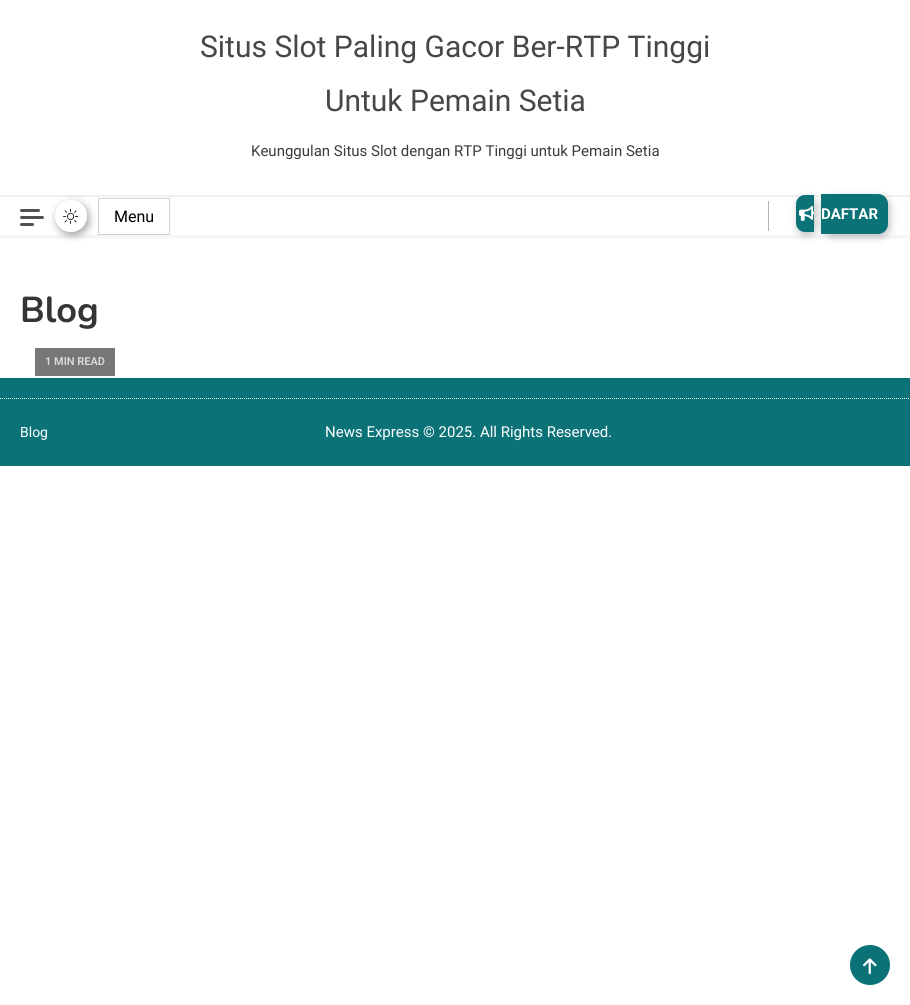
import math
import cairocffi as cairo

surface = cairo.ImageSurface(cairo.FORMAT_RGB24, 910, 1005)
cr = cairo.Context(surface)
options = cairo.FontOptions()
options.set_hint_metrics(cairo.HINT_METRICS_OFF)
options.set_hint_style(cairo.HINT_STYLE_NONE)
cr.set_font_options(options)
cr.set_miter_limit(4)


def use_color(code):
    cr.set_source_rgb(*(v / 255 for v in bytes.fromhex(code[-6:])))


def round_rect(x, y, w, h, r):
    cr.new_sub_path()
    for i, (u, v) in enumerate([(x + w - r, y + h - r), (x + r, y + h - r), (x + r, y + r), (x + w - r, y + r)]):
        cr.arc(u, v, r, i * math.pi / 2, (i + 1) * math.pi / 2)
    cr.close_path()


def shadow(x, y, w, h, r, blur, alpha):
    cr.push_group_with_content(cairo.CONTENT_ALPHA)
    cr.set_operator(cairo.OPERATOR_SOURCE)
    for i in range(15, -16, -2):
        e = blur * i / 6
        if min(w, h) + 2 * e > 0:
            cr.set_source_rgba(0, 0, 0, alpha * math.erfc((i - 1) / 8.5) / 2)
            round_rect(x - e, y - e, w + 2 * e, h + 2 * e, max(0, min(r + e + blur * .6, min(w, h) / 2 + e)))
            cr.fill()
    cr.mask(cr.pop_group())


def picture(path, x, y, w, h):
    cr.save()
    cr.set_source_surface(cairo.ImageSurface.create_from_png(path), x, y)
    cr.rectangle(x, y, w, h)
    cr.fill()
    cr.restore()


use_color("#ffffff")
cr.paint()
cr.save()
cr.rectangle(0, 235, 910, 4)
cr.clip()
use_color("#000000")
shadow(0, 0, 910, 235, 0, 5, 0.1)
cr.restore()
cr.select_font_face("Roboto")
cr.set_font_size(30)
use_color("#484747")
cr.move_to(200, 57)
cr.show_text("Situs Slot Paling Gacor Ber-RTP Tinggi")
cr.move_to(325, 111)
cr.show_text("Untuk Pemain Setia")
cr.set_font_size(15)
use_color("#3b3b3b")
cr.move_to(251, 156)
cr.show_text("Keunggulan Situs Slot dengan RTP Tinggi untuk Pemain Setia")
use_color("#efefef")
cr.rectangle(0, 195, 910, 2)
cr.fill()
use_color("#505050")
round_rect(20, 209, 20, 3, 1.5)
cr.fill()
round_rect(20, 216, 24, 3, 1.5)
cr.fill()
round_rect(20, 223, 14, 3, 1.5)
cr.fill()
cr.rectangle(98.5, 198.5, 71, 36)
use_color("#d5d1d1")
cr.set_line_width(1)
cr.stroke()
cr.save()
cr.set_fill_rule(cairo.FILL_RULE_EVEN_ODD)
cr.new_path()
cr.move_to(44, 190)
cr.line_to(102, 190)
cr.line_to(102, 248)
cr.line_to(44, 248)
cr.close_path()
cr.move_to(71, 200)
cr.curve_to(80, 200, 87, 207, 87, 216)
cr.curve_to(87, 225, 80, 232, 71, 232)
cr.curve_to(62, 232, 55, 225, 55, 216)
cr.curve_to(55, 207, 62, 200, 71, 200)
cr.close_path()
cr.clip()
use_color("#000000")
shadow(57, 203, 32, 32, 16, 4, 0.37)
cr.restore()
picture("img1.png", 63, 208, 16, 16)
cr.set_font_size(16)
use_color("#000000")
cr.move_to(114, 222)
cr.show_text("Menu")
use_color("#b3b3b3")
cr.rectangle(768, 201, 1, 30)
cr.fill()
use_color("#000000")
shadow(798, 198, 18, 37, 9, 4, 0.25)
use_color("#0b7378")
cr.new_path()
cr.move_to(805, 195)
cr.line_to(814, 195)
cr.line_to(814, 232)
cr.line_to(805, 232)
cr.curve_to(800, 232, 796, 228, 796, 223)
cr.line_to(796, 204)
cr.curve_to(796, 199, 800, 195, 805, 195)
cr.close_path()
cr.fill()
use_color("#000000")
shadow(823, 197, 67, 40, 10, 4, 0.25)
use_color("#0b7378")
cr.new_path()
cr.move_to(821, 194)
cr.line_to(878, 194)
cr.curve_to(883.5, 194, 888, 198.5, 888, 204)
cr.line_to(888, 224)
cr.curve_to(888, 229.5, 883.5, 234, 878, 234)
cr.line_to(821, 234)
cr.close_path()
cr.fill()
picture("img2.png", 799, 205, 15, 16)
cr.select_font_face("Roboto", cairo.FONT_SLANT_NORMAL, cairo.FONT_WEIGHT_BOLD)
cr.set_font_size(15)
use_color("#ffffff")
cr.move_to(821, 219)
cr.show_text("DAFTAR")
cr.select_font_face("Nunito", cairo.FONT_SLANT_NORMAL, cairo.FONT_WEIGHT_BOLD)
cr.set_font_size(36)
use_color("#353535")
cr.move_to(20, 322)
cr.show_text("Blog")
use_color("#777777")
cr.rectangle(35, 348, 80, 28)
cr.fill()
cr.select_font_face("Roboto SemiBold")
cr.set_font_size(11)
use_color("#dddcdc")
cr.move_to(45, 365)
cr.show_text("1 MIN READ")
use_color("#0b7378")
cr.rectangle(0, 378, 910, 88)
cr.fill()
cr.new_path()
cr.move_to(0, 398.5)
cr.line_to(910, 398.5)
use_color("#ffffff")
cr.set_dash([1, 1])
cr.stroke()
cr.select_font_face("Roboto")
cr.set_font_size(14)
cr.move_to(20, 437)
cr.show_text("Blog")
cr.set_font_size(15)
cr.move_to(325, 437)
cr.show_text("News Express © 2025. All Rights Reserved.")
use_color("#0b7378")
cr.new_path()
cr.arc(870, 965, 20, 0, 2 * math.pi)
cr.fill()
picture("img3.png", 863, 958, 14, 17)
surface.write_to_png("result.png")
